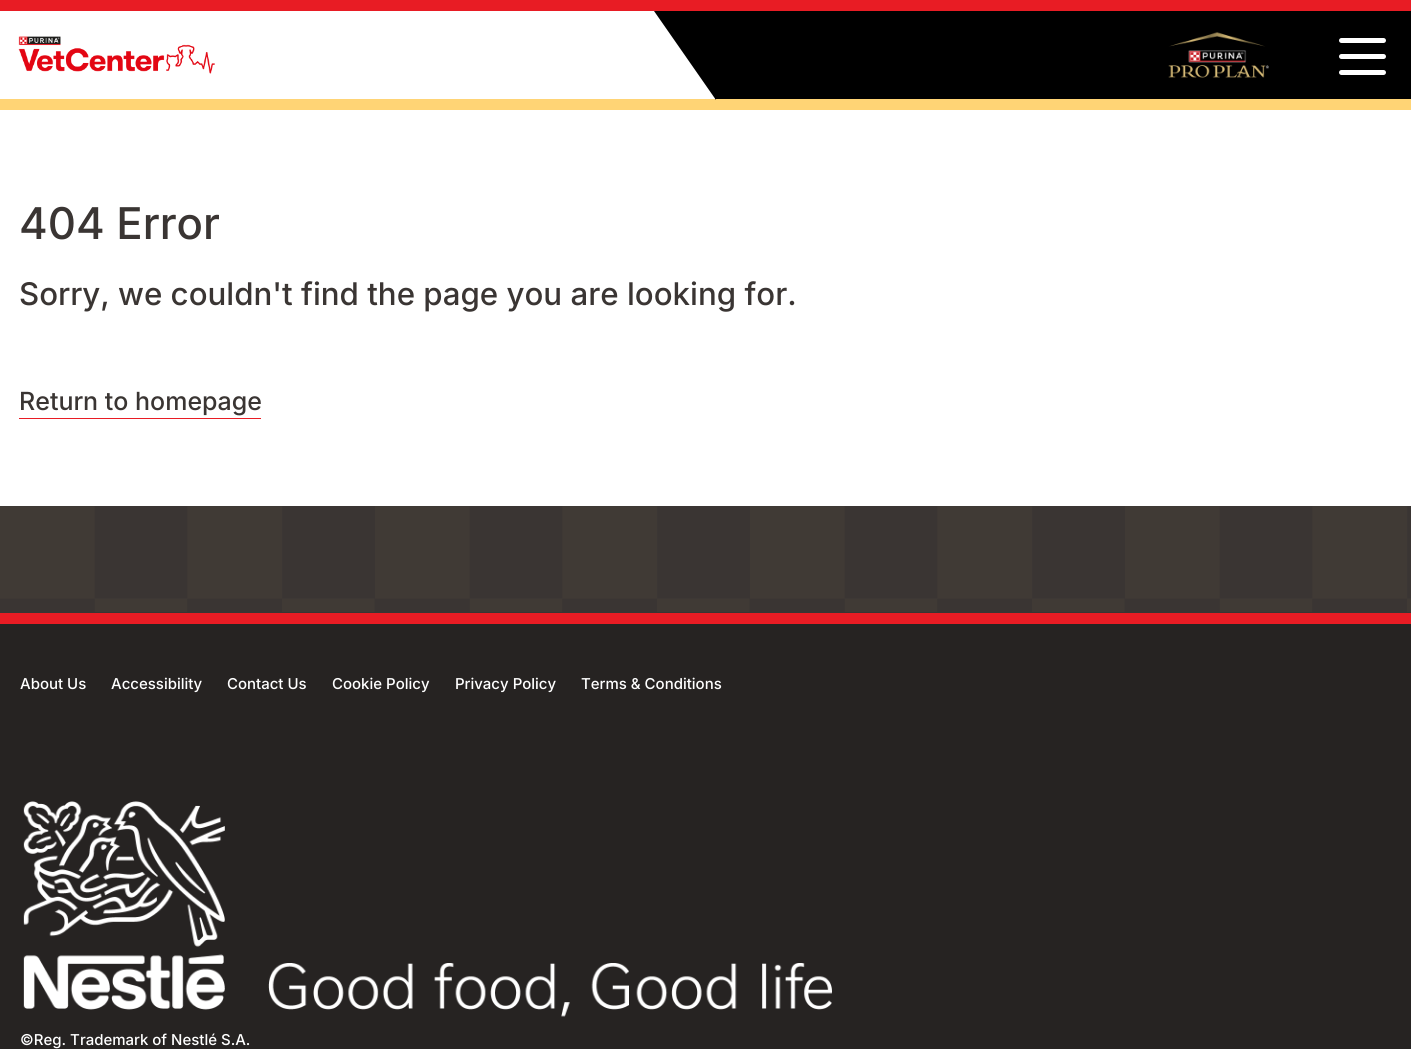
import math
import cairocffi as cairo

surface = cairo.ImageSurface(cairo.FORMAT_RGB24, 1411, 1049)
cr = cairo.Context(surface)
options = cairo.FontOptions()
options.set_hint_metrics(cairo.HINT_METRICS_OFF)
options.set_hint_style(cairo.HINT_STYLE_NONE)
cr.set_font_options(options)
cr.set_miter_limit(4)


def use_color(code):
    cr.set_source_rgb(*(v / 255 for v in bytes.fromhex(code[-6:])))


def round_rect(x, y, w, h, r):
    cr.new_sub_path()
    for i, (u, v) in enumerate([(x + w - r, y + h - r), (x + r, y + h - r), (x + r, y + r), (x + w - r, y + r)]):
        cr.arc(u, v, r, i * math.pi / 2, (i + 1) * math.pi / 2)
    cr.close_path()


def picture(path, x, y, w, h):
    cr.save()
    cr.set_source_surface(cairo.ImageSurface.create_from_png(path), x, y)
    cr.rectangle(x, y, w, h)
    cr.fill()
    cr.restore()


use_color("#ffffff")
cr.paint()
use_color("#e81c24")
cr.rectangle(0, 0, 1411, 11)
cr.fill()
use_color("#ffd475")
cr.rectangle(0, 99, 1411, 11)
cr.fill()
picture("img1.png", 18, 36, 197, 38)
use_color("#000000")
cr.rectangle(715, 11, 696, 88)
cr.fill()
cr.new_path()
cr.move_to(654, 11)
cr.line_to(718, 11)
cr.line_to(716, 100)
cr.close_path()
cr.fill()
picture("img2.png", 1168, 32, 101, 46)
use_color("#ffffff")
round_rect(1339, 38, 47, 5, 2.5)
cr.fill()
round_rect(1339, 54, 47, 5, 2.5)
cr.fill()
round_rect(1339, 70, 47, 5, 2.5)
cr.fill()
cr.select_font_face("Inter Medium")
cr.set_font_size(43.75)
use_color("#3a3533")
cr.move_to(19, 239)
cr.show_text("404 Error")
cr.set_font_size(31.25)
cr.move_to(19, 305)
cr.show_text("Sorry, we couldn't find the page you are looking for.")
use_color("#e81c24")
cr.rectangle(19, 418, 242, 1)
cr.fill()
cr.set_font_size(25)
use_color("#3a3533")
cr.move_to(19, 410)
cr.show_text("Return to homepage")
cr.rectangle(0, 506, 1411, 107)
cr.fill()
picture("img3.png", 0, 506, 1411, 106)
use_color("#262322")
cr.rectangle(0, 624, 1411, 425)
cr.fill()
use_color("#e81c24")
cr.rectangle(0, 613, 1411, 11)
cr.fill()
cr.set_font_size(15)
use_color("#ffffff")
cr.move_to(20, 689)
cr.show_text("About Us")
cr.move_to(111, 689)
cr.show_text("Accessibility")
cr.move_to(227, 689)
cr.show_text("Contact Us")
cr.move_to(332, 689)
cr.show_text("Cookie Policy")
cr.move_to(455, 689)
cr.show_text("Privacy Policy")
cr.move_to(581, 689)
cr.show_text("Terms & Conditions")
picture("img4.png", 23, 801, 809, 216)
cr.move_to(20, 1045)
cr.show_text("©Reg. Trademark of Nestlé S.A.")
surface.write_to_png("result.png")
